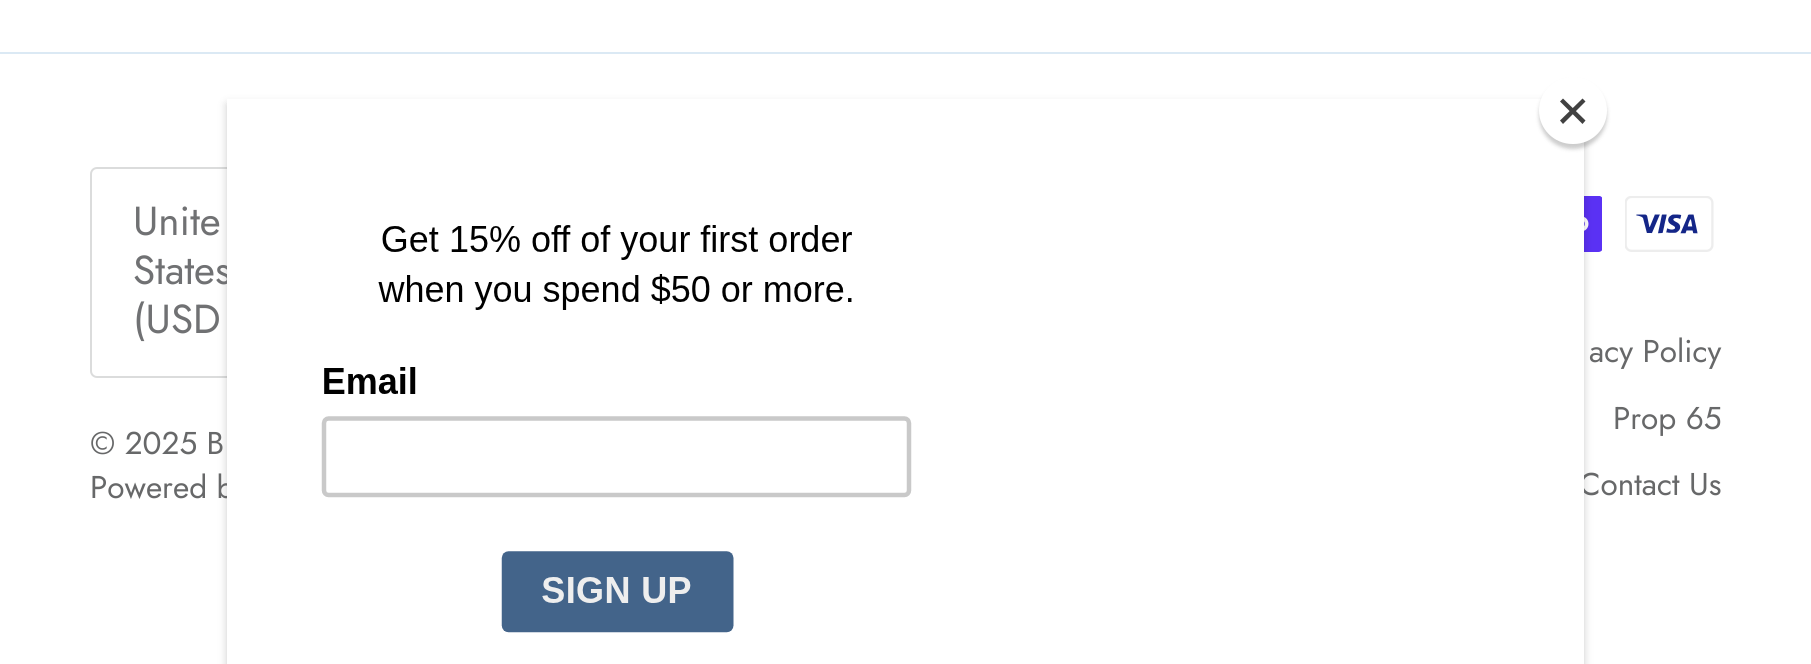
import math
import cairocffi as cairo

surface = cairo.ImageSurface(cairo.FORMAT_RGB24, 1811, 664)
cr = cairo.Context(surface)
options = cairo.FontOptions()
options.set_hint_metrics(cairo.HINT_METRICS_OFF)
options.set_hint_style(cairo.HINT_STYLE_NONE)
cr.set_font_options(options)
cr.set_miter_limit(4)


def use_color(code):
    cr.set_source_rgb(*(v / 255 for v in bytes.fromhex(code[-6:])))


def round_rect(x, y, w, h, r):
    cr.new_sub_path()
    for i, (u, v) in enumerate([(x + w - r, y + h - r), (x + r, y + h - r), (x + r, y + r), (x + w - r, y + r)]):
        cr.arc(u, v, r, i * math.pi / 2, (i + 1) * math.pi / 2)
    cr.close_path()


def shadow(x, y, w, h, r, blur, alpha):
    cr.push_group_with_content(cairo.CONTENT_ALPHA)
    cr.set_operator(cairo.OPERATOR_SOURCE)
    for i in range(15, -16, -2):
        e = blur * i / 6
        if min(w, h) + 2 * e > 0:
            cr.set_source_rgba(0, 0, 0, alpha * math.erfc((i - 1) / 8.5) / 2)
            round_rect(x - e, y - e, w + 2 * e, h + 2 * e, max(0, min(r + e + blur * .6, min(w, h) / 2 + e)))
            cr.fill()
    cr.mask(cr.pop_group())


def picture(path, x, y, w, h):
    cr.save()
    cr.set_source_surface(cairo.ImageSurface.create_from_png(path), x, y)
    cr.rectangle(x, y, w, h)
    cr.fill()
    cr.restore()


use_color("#ffffff")
cr.paint()
round_rect(91, 168, 300, 209, 6)
use_color("#dbdcdc")
cr.stroke()
picture("img2.png", 1584, 196, 18, 56)
cr.save()
cr.set_fill_rule(cairo.FILL_RULE_EVEN_ODD)
cr.new_path()
cr.move_to(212, 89)
cr.line_to(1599, 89)
cr.line_to(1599, 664)
cr.line_to(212, 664)
cr.close_path()
cr.move_to(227, 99)
cr.line_to(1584, 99)
cr.line_to(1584, 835)
cr.line_to(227, 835)
cr.close_path()
cr.clip()
use_color("#000000")
shadow(227, 104, 1357, 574, 0, 4.5, 0.2)
cr.restore()
cr.select_font_face("Jost")
cr.set_font_size(40.5)
use_color("#707173")
cr.move_to(133, 284)
cr.show_text("States")
cr.set_font_size(31.5)
use_color("#676869")
cr.move_to(90, 498)
cr.show_text("Powered b")
cr.move_to(1579, 495)
cr.show_text("Contact Us")
picture("img1.png", 227, 105, 1357, 559)
use_color("#000000")
shadow(1539, 81, 68, 68, 34, 2, 0.2)
use_color("#ffffff")
round_rect(1539, 77, 68, 67, 33.5)
cr.fill()
use_color("#414141")
cr.new_path()
cr.move_to(1582.5, 98.5)
cr.line_to(1585.5, 101.5)
cr.line_to(1563, 124)
cr.line_to(1560, 120.5)
cr.close_path()
cr.fill()
cr.new_path()
cr.move_to(1560, 101.5)
cr.line_to(1563, 98.5)
cr.line_to(1585.5, 120.5)
cr.line_to(1582.5, 124)
cr.close_path()
cr.fill()
use_color("#dbe9f4")
cr.rectangle(0, 52, 1811, 2)
cr.fill()
cr.set_font_size(40.5)
use_color("#707173")
cr.move_to(133, 235)
cr.show_text("Unite")
cr.move_to(133, 333)
cr.show_text("(USD")
cr.set_font_size(31.5)
use_color("#676869")
cr.move_to(90, 454)
cr.show_text("© 2025 B")
picture("img3.png", 1625, 196, 89, 56)
cr.move_to(1589, 362)
cr.show_text("acy Policy")
cr.move_to(1613, 429)
cr.show_text("Prop 65")
surface.write_to_png("result.png")
